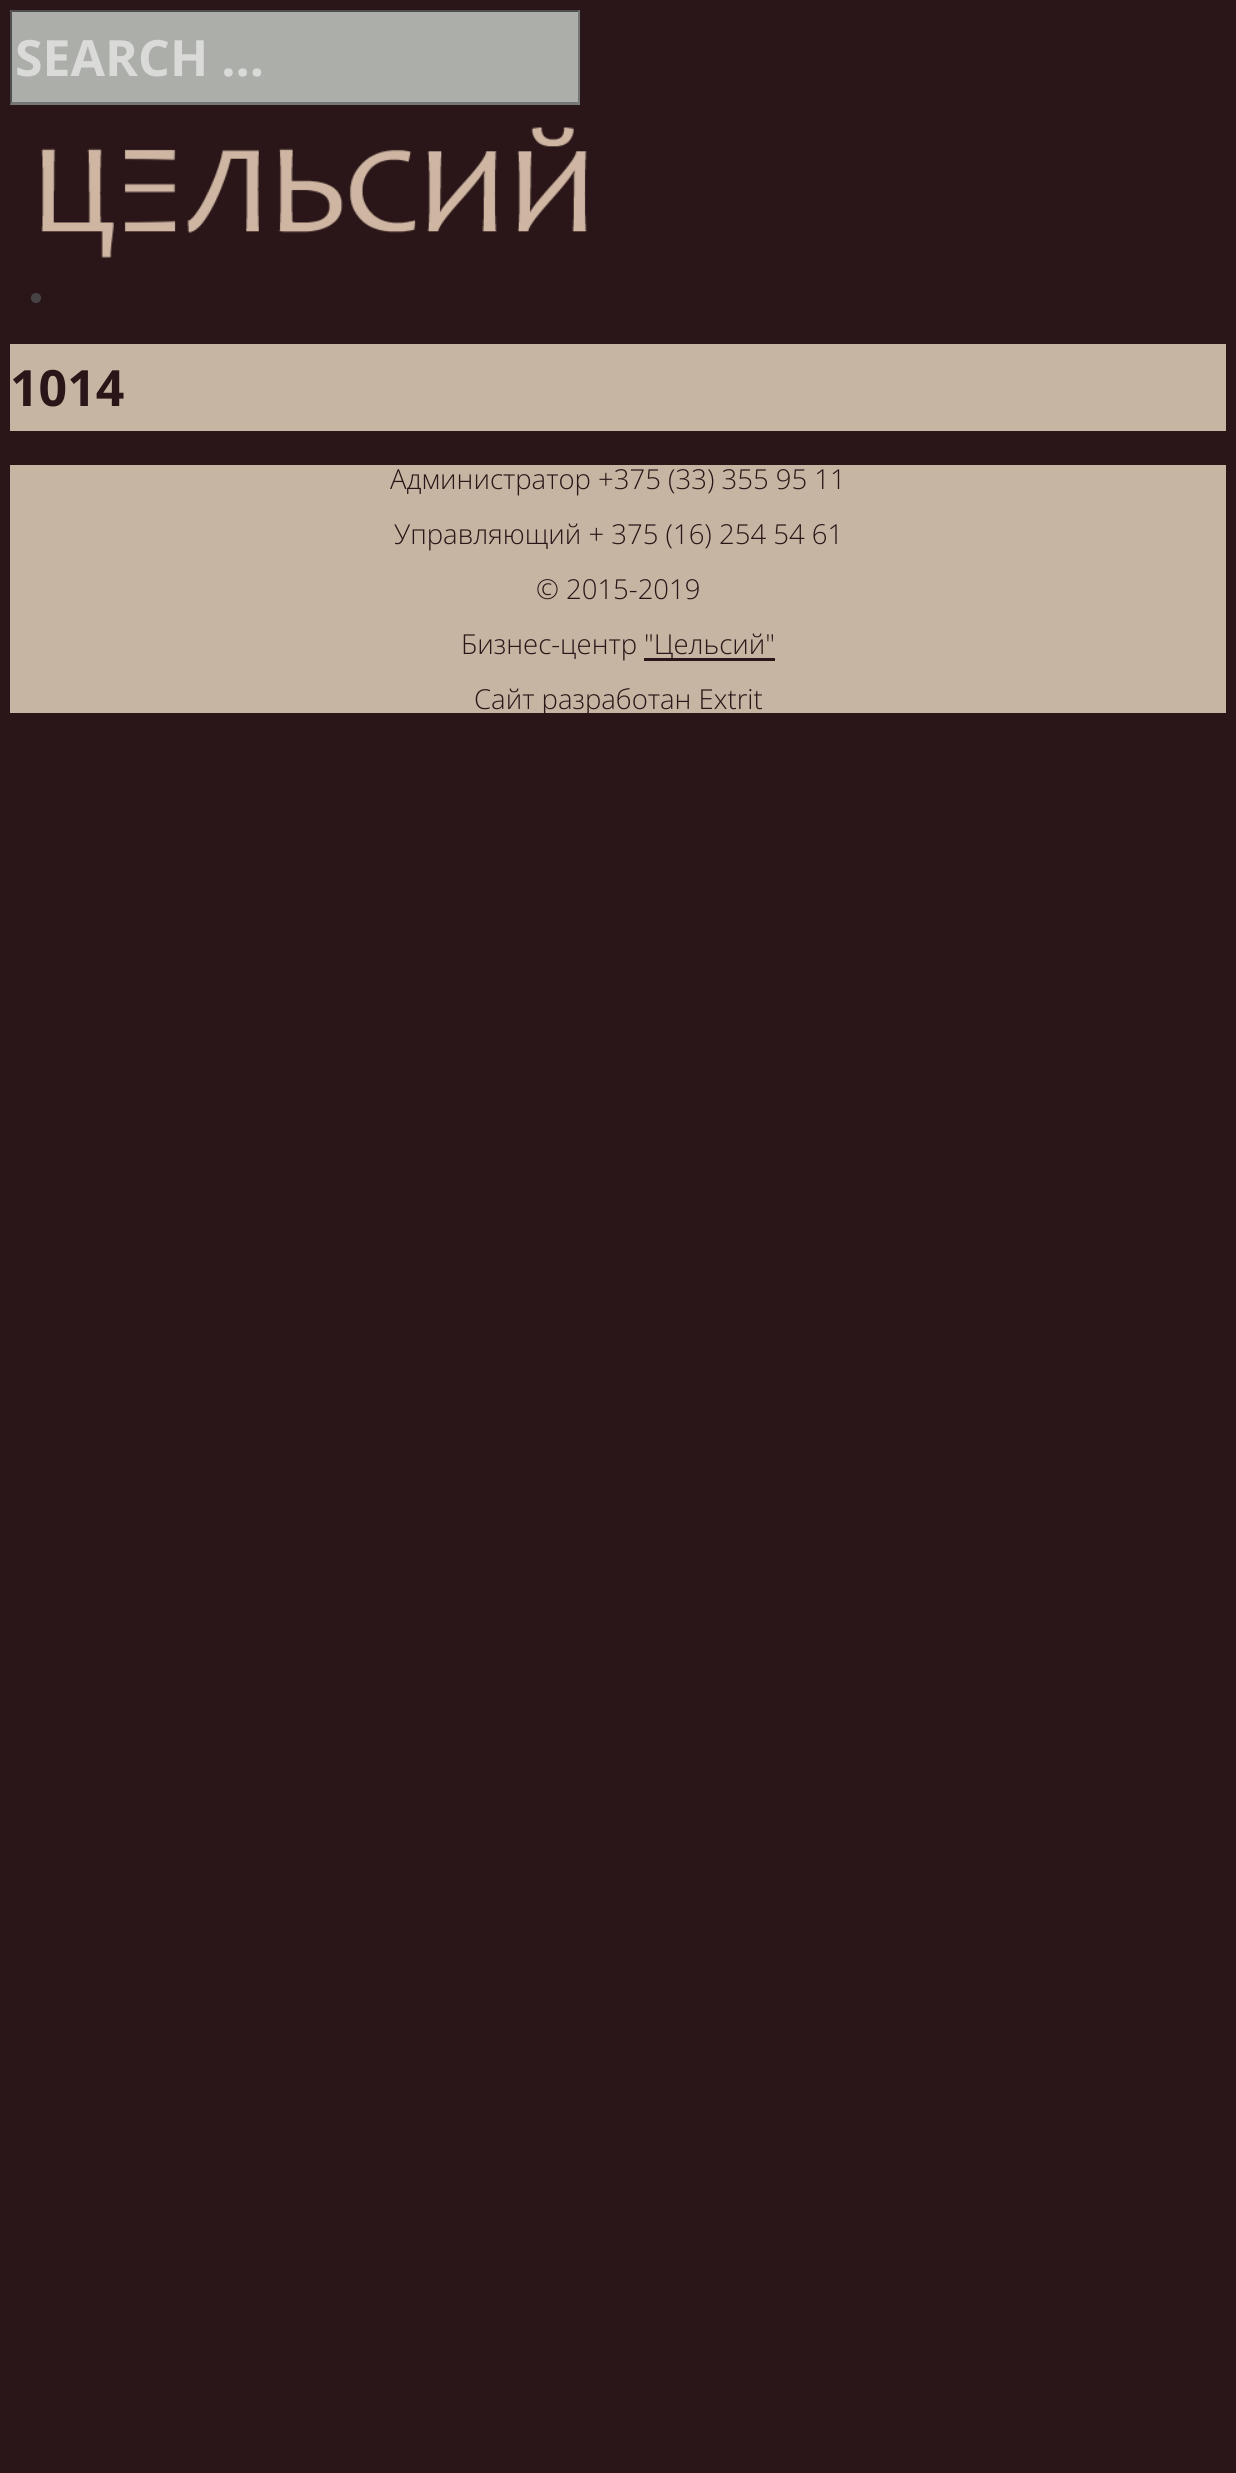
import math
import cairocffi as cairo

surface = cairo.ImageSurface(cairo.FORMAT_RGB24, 1236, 2473)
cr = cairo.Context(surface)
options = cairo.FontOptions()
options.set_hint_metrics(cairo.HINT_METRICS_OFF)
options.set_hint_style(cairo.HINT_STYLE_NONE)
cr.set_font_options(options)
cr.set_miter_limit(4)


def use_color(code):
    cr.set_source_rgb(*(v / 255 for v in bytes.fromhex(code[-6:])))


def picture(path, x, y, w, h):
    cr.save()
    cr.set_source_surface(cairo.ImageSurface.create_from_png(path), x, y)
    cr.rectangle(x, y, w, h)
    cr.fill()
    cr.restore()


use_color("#2a1618")
cr.paint()
use_color("#acaea9")
cr.rectangle(10, 10, 570, 95)
cr.fill()
use_color("#4f4f4f")
cr.new_path()
cr.move_to(10, 10)
cr.line_to(580, 10)
cr.line_to(578, 12)
cr.line_to(12, 12)
cr.close_path()
cr.fill()
use_color("#767676")
cr.new_path()
cr.move_to(580, 10)
cr.line_to(580, 105)
cr.line_to(578, 102)
cr.line_to(578, 12)
cr.close_path()
cr.fill()
cr.new_path()
cr.move_to(580, 105)
cr.line_to(10, 105)
cr.line_to(12, 102)
cr.line_to(578, 102)
cr.close_path()
cr.fill()
use_color("#4f4f4f")
cr.new_path()
cr.move_to(10, 105)
cr.line_to(10, 10)
cr.line_to(12, 12)
cr.line_to(12, 102)
cr.close_path()
cr.fill()
cr.select_font_face("Open Sans", cairo.FONT_SLANT_NORMAL, cairo.FONT_WEIGHT_BOLD)
cr.set_font_size(50)
use_color("#dadbd9")
cr.move_to(15, 76)
cr.show_text("SEARCH ...")
picture("img1.png", 41, 127, 546, 131)
use_color("#474344")
cr.arc(36, 298, 5, 0, 2 * math.pi)
cr.fill()
use_color("#c6b5a2")
cr.rectangle(10, 344, 1216, 87)
cr.fill()
use_color("#2a1618")
cr.move_to(10, 406)
cr.show_text("1014")
use_color("#c6b5a2")
cr.rectangle(10, 465, 1216, 248)
cr.fill()
cr.select_font_face("Open Sans Light")
cr.set_font_size(27.5)
use_color("#2a1618")
cr.move_to(390, 489)
cr.show_text("Администратор +375 (33) 355 95 11")
cr.move_to(394, 544)
cr.show_text("Управляющий + 375 (16) 254 54 61")
cr.move_to(536, 599)
cr.show_text("© 2015-2019")
cr.move_to(461, 654)
cr.show_text("Бизнес-центр")
cr.rectangle(644, 658, 131, 3)
cr.fill()
cr.move_to(644, 654)
cr.show_text("\"Цельсий\"")
cr.move_to(474, 709)
cr.show_text("Сайт разработан Extrit")
surface.write_to_png("result.png")
